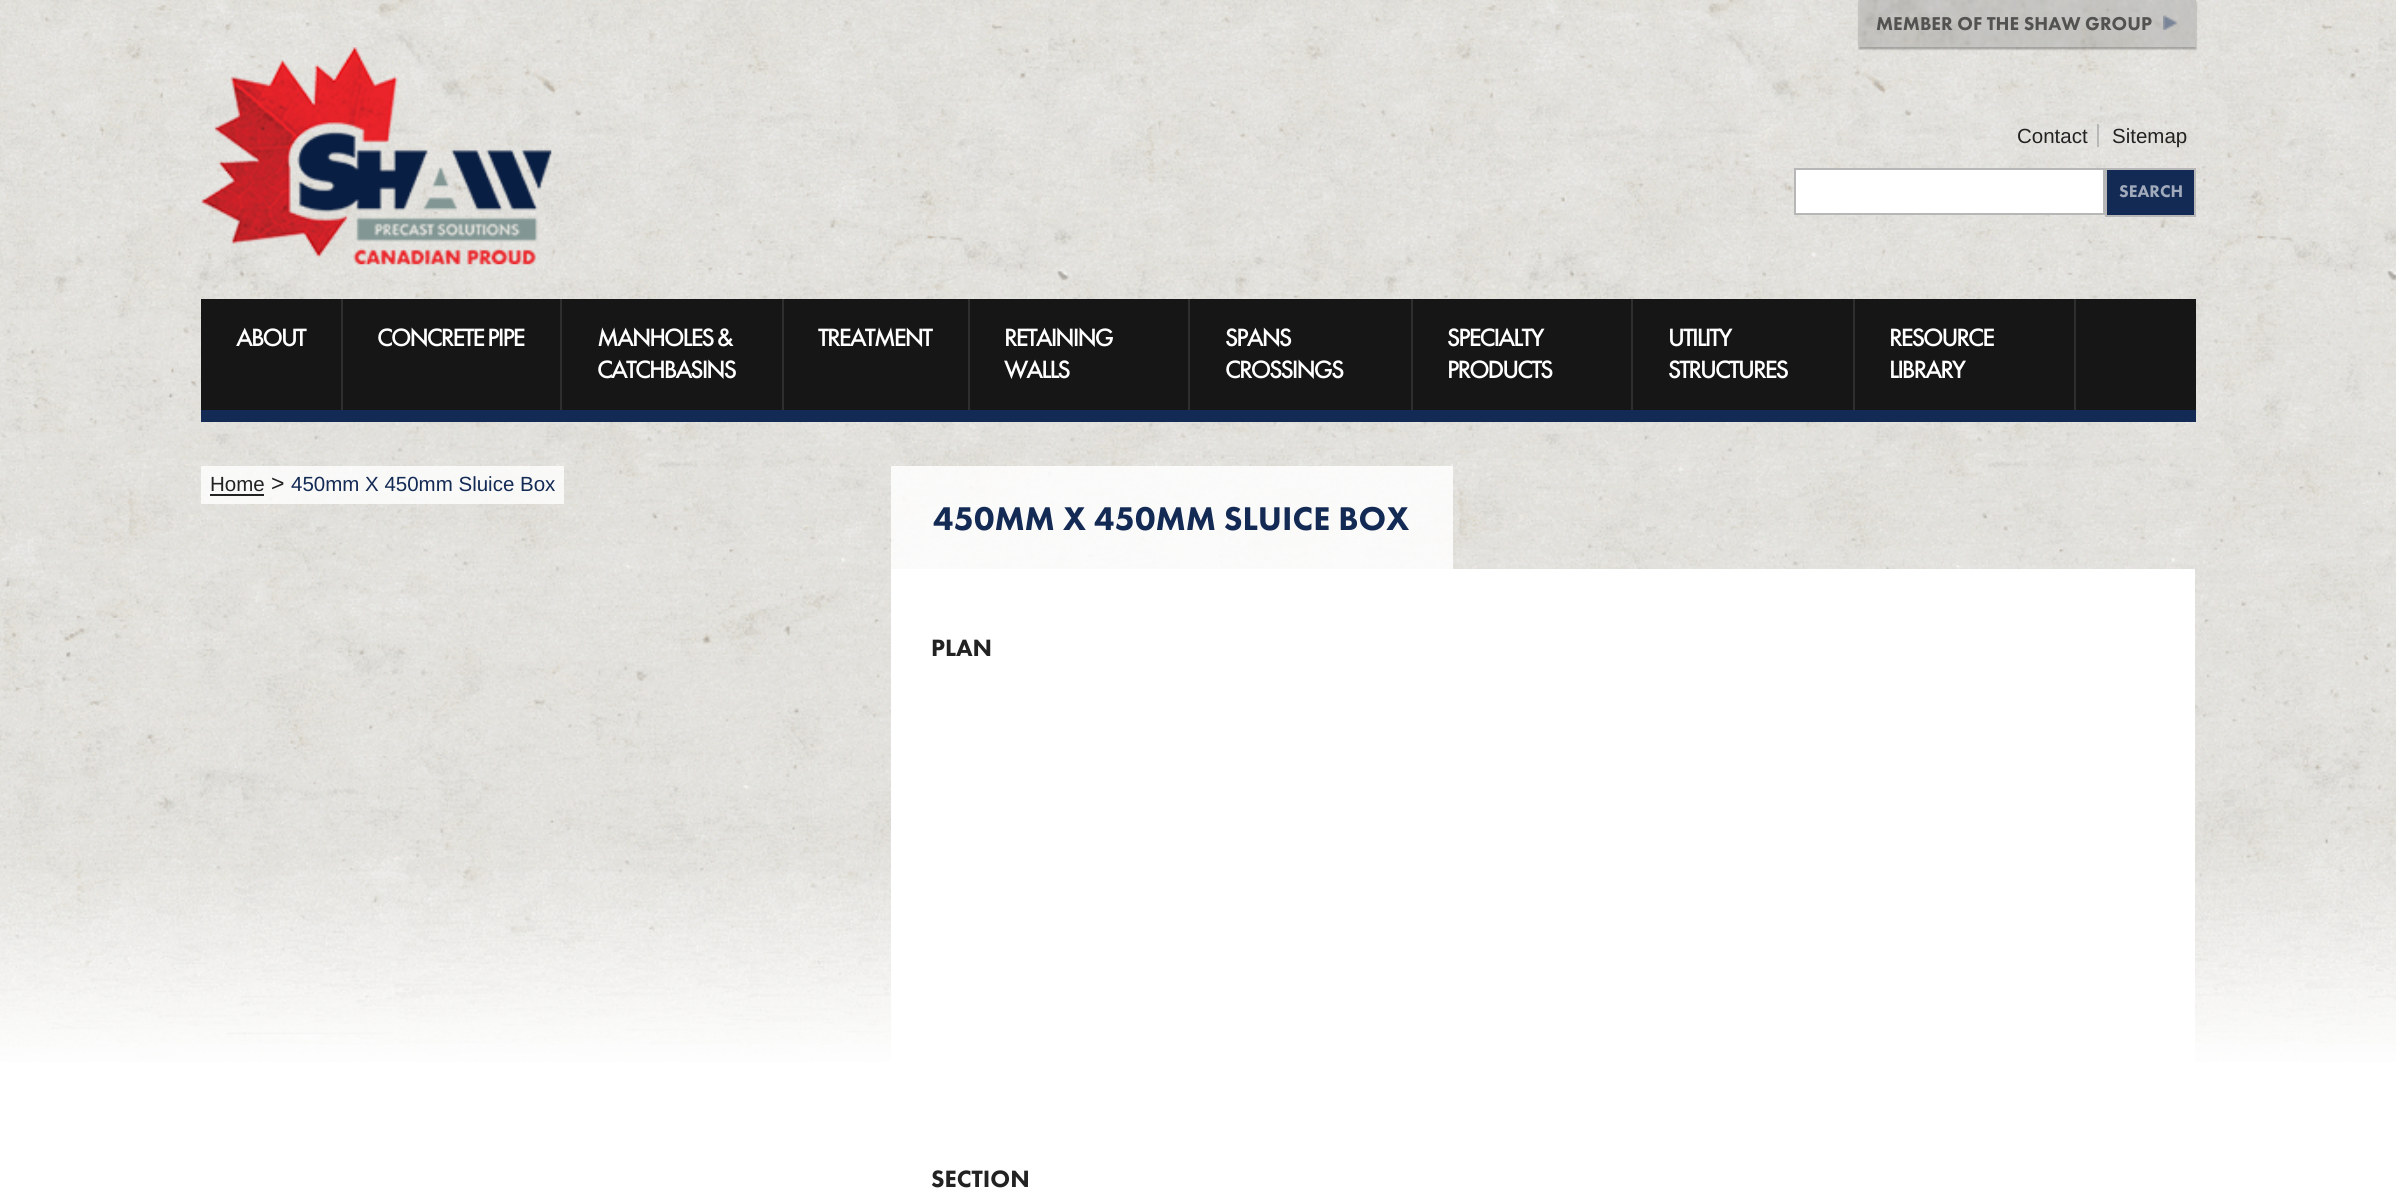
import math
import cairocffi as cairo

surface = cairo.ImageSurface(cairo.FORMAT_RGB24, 2396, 1202)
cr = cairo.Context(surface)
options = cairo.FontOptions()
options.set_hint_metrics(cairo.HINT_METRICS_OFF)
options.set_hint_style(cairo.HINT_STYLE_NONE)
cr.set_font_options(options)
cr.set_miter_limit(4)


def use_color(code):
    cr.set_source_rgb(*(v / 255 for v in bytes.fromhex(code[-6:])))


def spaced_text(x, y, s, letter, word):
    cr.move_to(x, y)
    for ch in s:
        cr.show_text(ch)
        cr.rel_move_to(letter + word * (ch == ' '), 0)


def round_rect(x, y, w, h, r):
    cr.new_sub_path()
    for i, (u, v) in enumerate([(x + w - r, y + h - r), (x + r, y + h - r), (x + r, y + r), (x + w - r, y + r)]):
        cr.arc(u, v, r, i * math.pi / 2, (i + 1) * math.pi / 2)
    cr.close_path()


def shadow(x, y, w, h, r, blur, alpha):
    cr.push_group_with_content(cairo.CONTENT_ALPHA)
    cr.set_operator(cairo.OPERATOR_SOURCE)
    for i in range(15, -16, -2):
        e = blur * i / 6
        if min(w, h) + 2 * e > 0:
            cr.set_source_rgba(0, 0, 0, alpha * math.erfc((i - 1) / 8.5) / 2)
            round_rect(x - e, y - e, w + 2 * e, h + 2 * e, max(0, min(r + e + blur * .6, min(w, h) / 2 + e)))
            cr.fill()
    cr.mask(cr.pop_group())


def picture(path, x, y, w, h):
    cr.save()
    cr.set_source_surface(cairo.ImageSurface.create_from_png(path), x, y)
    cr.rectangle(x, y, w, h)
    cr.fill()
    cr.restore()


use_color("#ffffff")
cr.paint()
picture("img1.png", 0, 0, 2396, 1062)
use_color("#000000")
shadow(1859, 2, 337, 47, 0, 1, 0.34)
use_color("#c4c3be")
cr.rectangle(2195, 0, 1, 47)
cr.fill()
picture("img2.png", 1858, 0, 337, 48)
cr.select_font_face("Futura PT Black")
cr.set_font_size(19.3)
use_color("#525251")
cr.move_to(1876, 30)
cr.show_text("MEMBER OF THE SHAW GROUP")
picture("img3.png", 2163, 15, 15, 15)
picture("img4.png", 201, 47, 351, 218)
cr.select_font_face("Liberation Sans")
cr.set_font_size(20.5)
use_color("#222222")
cr.move_to(2017, 143)
cr.show_text("Contact")
use_color("#b8b8b6")
cr.rectangle(2097, 124, 2, 23)
cr.fill()
use_color("#222222")
cr.move_to(2112, 143)
cr.show_text("Sitemap")
use_color("#ffffff")
cr.rectangle(1795, 169, 309, 45)
cr.fill_preserve()
use_color("#b7b7b7")
cr.stroke()
use_color("#132a55")
cr.rectangle(2106, 169, 89, 47)
cr.fill_preserve()
use_color("#b7b7b7")
cr.stroke()
cr.select_font_face("Futura PT Black")
cr.set_font_size(17.5)
use_color("#a1aabb")
cr.move_to(2119, 197)
cr.show_text("SEARCH")
use_color("#161616")
cr.rectangle(201, 299, 1995, 111)
cr.fill()
use_color("#132a55")
cr.rectangle(201, 410, 1995, 12)
cr.fill()
use_color("#2e2e2e")
cr.rectangle(341, 299, 2, 111)
cr.fill()
cr.select_font_face("Futura PT Medium")
cr.set_font_size(26)
use_color("#ffffff")
spaced_text(236, 346, "ABOUT", -2.1, 0)
use_color("#2e2e2e")
cr.rectangle(560, 299, 2, 111)
cr.fill()
use_color("#ffffff")
spaced_text(377, 346, "CONCRETE PIPE", -2.1, 0)
use_color("#2e2e2e")
cr.rectangle(782, 299, 2, 111)
cr.fill()
use_color("#ffffff")
spaced_text(597, 346, "MANHOLES &", -2.1, 0)
spaced_text(597, 378, "CATCHBASINS", -2.1, 0)
use_color("#2e2e2e")
cr.rectangle(968, 299, 2, 111)
cr.fill()
use_color("#ffffff")
spaced_text(818, 346, "TREATMENT", -2.1, 0)
use_color("#2e2e2e")
cr.rectangle(1188, 299, 2, 111)
cr.fill()
use_color("#ffffff")
spaced_text(1004, 346, "RETAINING", -2.1, 0)
spaced_text(1004, 378, "WALLS", -2.1, 0)
use_color("#2e2e2e")
cr.rectangle(1411, 299, 2, 111)
cr.fill()
use_color("#ffffff")
spaced_text(1225, 346, "SPANS", -2.1, 0)
spaced_text(1225, 378, "CROSSINGS", -2.1, 0)
use_color("#2e2e2e")
cr.rectangle(1631, 299, 2, 111)
cr.fill()
use_color("#ffffff")
spaced_text(1447, 346, "SPECIALTY", -2.1, 0)
spaced_text(1447, 378, "PRODUCTS", -2.1, 0)
use_color("#2e2e2e")
cr.rectangle(1853, 299, 2, 111)
cr.fill()
use_color("#ffffff")
spaced_text(1668, 346, "UTILITY", -2.1, 0)
spaced_text(1668, 378, "STRUCTURES", -2.1, 0)
use_color("#2e2e2e")
cr.rectangle(2074, 299, 2, 111)
cr.fill()
use_color("#ffffff")
spaced_text(1889, 346, "RESOURCE", -2.1, 0)
spaced_text(1889, 378, "LIBRARY", -2.1, 0)
cr.set_source_rgba(1, 1, 1, 0.8)
cr.rectangle(201, 466, 363, 38)
cr.fill()
cr.select_font_face("Liberation Sans")
cr.set_font_size(20.5)
use_color("#222222")
cr.move_to(210, 491)
cr.show_text("Home")
cr.rectangle(210, 494, 54, 2)
cr.fill()
cr.set_font_size(23)
cr.move_to(271, 491)
cr.show_text(">")
cr.set_font_size(20.5)
use_color("#132a55")
cr.move_to(291, 491)
cr.show_text("450mm X 450mm Sluice Box")
cr.set_source_rgba(1, 1, 1, 0.85)
cr.rectangle(891, 466, 562, 103)
cr.fill()
cr.select_font_face("Futura PT Black")
cr.set_font_size(34.1)
use_color("#132a55")
cr.move_to(933, 530)
cr.show_text("450MM X 450MM SLUICE BOX")
use_color("#ffffff")
cr.rectangle(891, 569, 1304, 493)
cr.fill()
cr.set_font_size(24.5)
use_color("#222222")
cr.move_to(931, 656)
cr.show_text("PLAN")
cr.move_to(931, 1187)
cr.show_text("SECTION")
surface.write_to_png("result.png")
